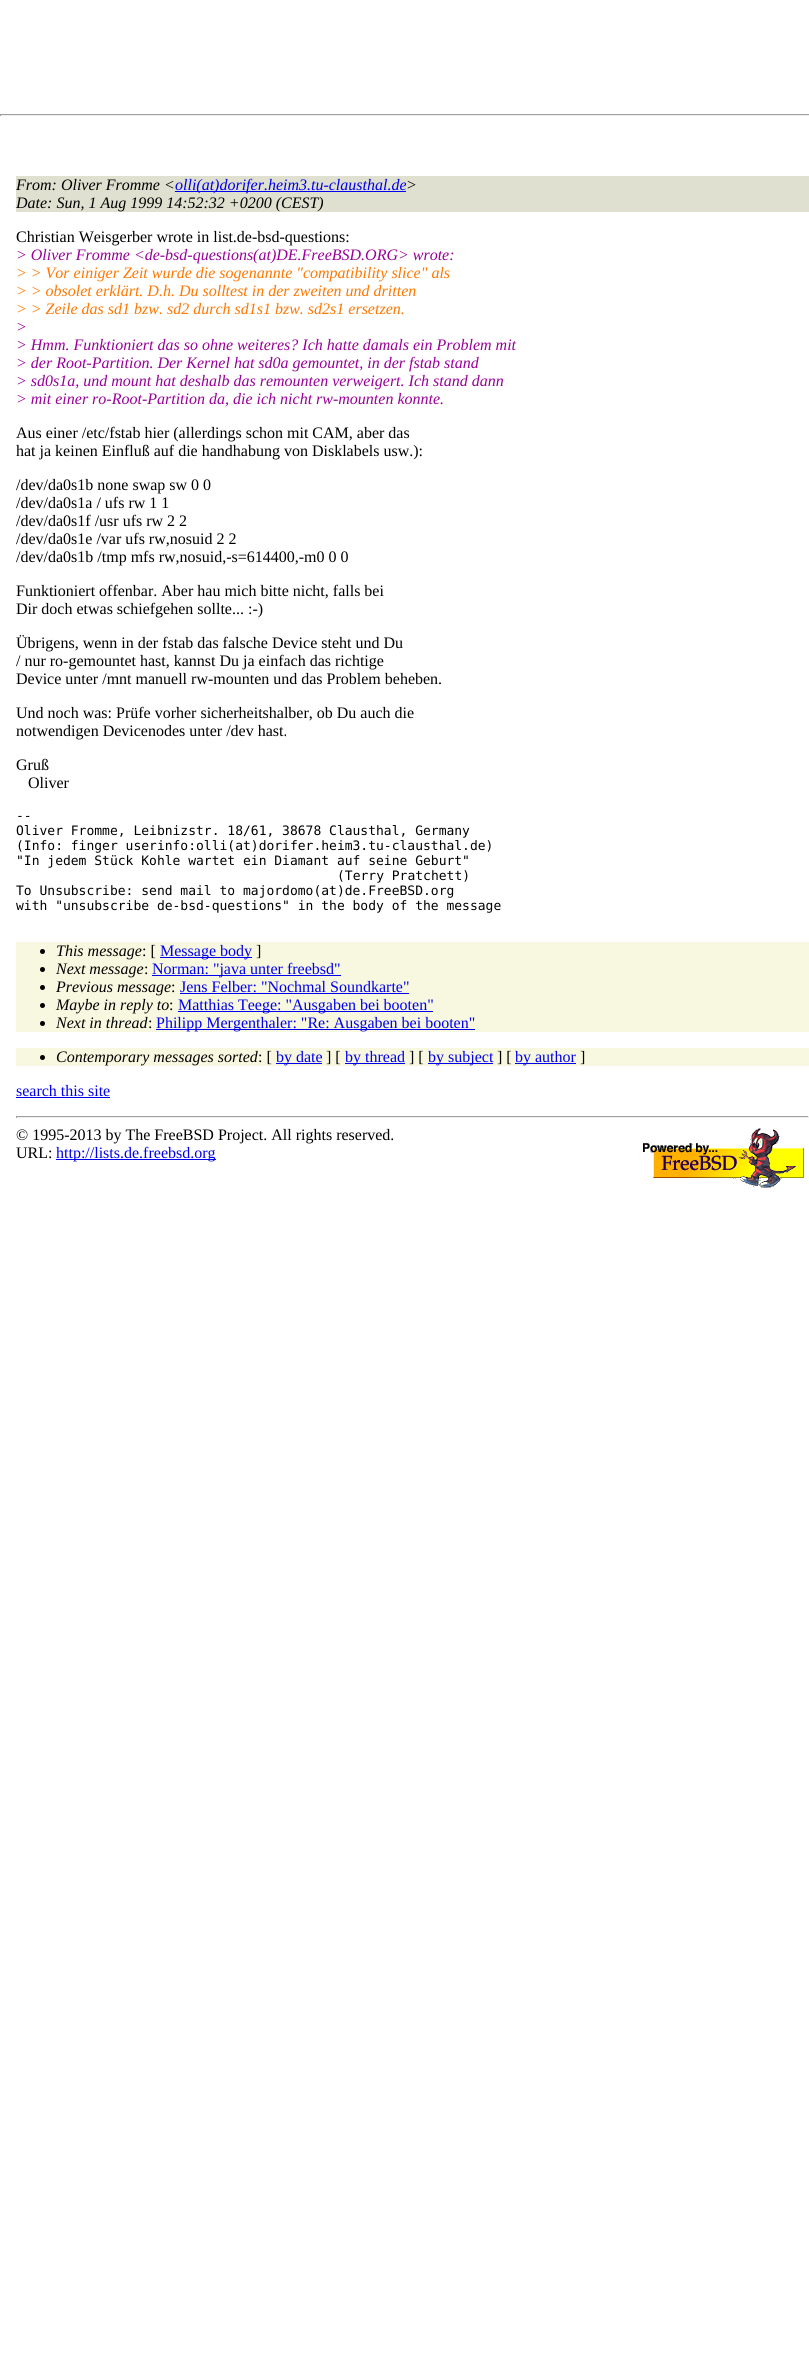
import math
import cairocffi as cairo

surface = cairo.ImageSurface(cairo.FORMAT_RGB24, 809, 2374)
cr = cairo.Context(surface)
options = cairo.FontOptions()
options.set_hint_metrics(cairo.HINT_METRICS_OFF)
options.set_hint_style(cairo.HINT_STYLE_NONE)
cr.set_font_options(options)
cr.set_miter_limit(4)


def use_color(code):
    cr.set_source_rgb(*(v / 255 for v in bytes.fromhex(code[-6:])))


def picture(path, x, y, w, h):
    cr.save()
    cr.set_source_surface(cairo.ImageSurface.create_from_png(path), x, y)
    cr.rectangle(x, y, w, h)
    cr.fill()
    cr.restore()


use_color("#ffffff")
cr.paint()
use_color("#9f9f9f")
cr.rectangle(0, 114, 809, 1)
cr.fill()
use_color("#eeeeee")
cr.rectangle(0, 115, 809, 1)
cr.fill()
use_color("#9f9f9f")
cr.rectangle(0, 114, 1, 2)
cr.fill()
use_color("#e0e0d0")
cr.rectangle(16, 176, 793, 36)
cr.fill()
cr.select_font_face("Liberation Serif", cairo.FONT_SLANT_ITALIC)
cr.set_font_size(16)
use_color("#000000")
cr.move_to(16, 190)
cr.show_text("From: Oliver Fromme <")
use_color("#0000ee")
cr.rectangle(175, 191, 231, 1)
cr.fill()
cr.move_to(175, 190)
cr.show_text("olli(at)dorifer.heim3.tu-clausthal.de")
use_color("#000000")
cr.move_to(406, 190)
cr.show_text(">")
cr.move_to(16, 208)
cr.show_text("Date: Sun, 1 Aug 1999 14:52:32 +0200 (CEST)")
cr.select_font_face("Liberation Serif")
cr.move_to(16, 242)
cr.show_text("Christian Weisgerber wrote in list.de-bsd-questions:")
cr.select_font_face("Liberation Serif", cairo.FONT_SLANT_ITALIC)
use_color("#990099")
cr.move_to(16, 260)
cr.show_text("> Oliver Fromme <de-bsd-questions(at)DE.FreeBSD.ORG> wrote:")
use_color("#ff7700")
cr.move_to(16, 278)
cr.show_text("> > Vor einiger Zeit wurde die sogenannte \"compatibility slice\" als")
cr.move_to(16, 296)
cr.show_text("> > obsolet erklärt. D.h. Du solltest in der zweiten und dritten")
cr.move_to(16, 314)
cr.show_text("> > Zeile das sd1 bzw. sd2 durch sd1s1 bzw. sd2s1 ersetzen.")
use_color("#990099")
cr.move_to(16, 332)
cr.show_text(">")
cr.move_to(16, 350)
cr.show_text("> Hmm. Funktioniert das so ohne weiteres? Ich hatte damals ein Problem mit")
cr.move_to(16, 368)
cr.show_text("> der Root-Partition. Der Kernel hat sd0a gemountet, in der fstab stand")
cr.move_to(16, 386)
cr.show_text("> sd0s1a, und mount hat deshalb das remounten verweigert. Ich stand dann")
cr.move_to(16, 404)
cr.show_text("> mit einer ro-Root-Partition da, die ich nicht rw-mounten konnte.")
cr.select_font_face("Liberation Serif")
use_color("#000000")
cr.move_to(16, 438)
cr.show_text("Aus einer /etc/fstab hier (allerdings schon mit CAM, aber das")
cr.move_to(16, 456)
cr.show_text("hat ja keinen Einfluß auf die handhabung von Disklabels usw.):")
cr.move_to(16, 490)
cr.show_text("/dev/da0s1b none swap sw 0 0")
cr.move_to(16, 508)
cr.show_text("/dev/da0s1a / ufs rw 1 1")
cr.move_to(16, 526)
cr.show_text("/dev/da0s1f /usr ufs rw 2 2")
cr.move_to(16, 544)
cr.show_text("/dev/da0s1e /var ufs rw,nosuid 2 2")
cr.move_to(16, 562)
cr.show_text("/dev/da0s1b /tmp mfs rw,nosuid,-s=614400,-m0 0 0")
cr.move_to(16, 596)
cr.show_text("Funktioniert offenbar. Aber hau mich bitte nicht, falls bei")
cr.move_to(16, 614)
cr.show_text("Dir doch etwas schiefgehen sollte... :-)")
cr.move_to(16, 648)
cr.show_text("Übrigens, wenn in der fstab das falsche Device steht und Du")
cr.move_to(16, 666)
cr.show_text("/ nur ro-gemountet hast, kannst Du ja einfach das richtige")
cr.move_to(16, 684)
cr.show_text("Device unter /mnt manuell rw-mounten und das Problem beheben.")
cr.move_to(16, 718)
cr.show_text("Und noch was: Prüfe vorher sicherheitshalber, ob Du auch die")
cr.move_to(16, 736)
cr.show_text("notwendigen Devicenodes unter /dev hast.")
cr.move_to(16, 770)
cr.show_text("Gruß")
cr.move_to(28, 788)
cr.show_text("Oliver")
cr.select_font_face("DejaVu Sans Mono")
cr.set_font_size(13)
cr.move_to(16, 820)
cr.show_text("--")
cr.move_to(16, 835)
cr.show_text("Oliver Fromme, Leibnizstr. 18/61, 38678 Clausthal, Germany")
cr.move_to(16, 850)
cr.show_text("(Info: finger userinfo:olli(at)dorifer.heim3.tu-clausthal.de)")
cr.move_to(16, 865)
cr.show_text("\"In jedem Stück Kohle wartet ein Diamant auf seine Geburt\"")
cr.move_to(337, 880)
cr.show_text("(Terry Pratchett)")
cr.move_to(16, 895)
cr.show_text("To Unsubscribe: send mail to majordomo(at)de.FreeBSD.org")
cr.move_to(16, 910)
cr.show_text("with \"unsubscribe de-bsd-questions\" in the body of the message")
use_color("#f8f8e0")
cr.rectangle(16, 942, 793, 90)
cr.fill()
use_color("#000000")
cr.arc(42.5, 951.5, 2.5, 0, 2 * math.pi)
cr.fill()
cr.select_font_face("Liberation Serif", cairo.FONT_SLANT_ITALIC)
cr.set_font_size(16)
cr.move_to(56, 956)
cr.show_text("This message")
cr.select_font_face("Liberation Serif")
cr.move_to(142, 956)
cr.show_text(": [")
use_color("#0000ee")
cr.rectangle(160, 957, 92, 1)
cr.fill()
cr.move_to(160, 956)
cr.show_text("Message body")
use_color("#000000")
cr.move_to(256, 956)
cr.show_text("]")
cr.new_path()
cr.arc(42.5, 969.5, 2.5, 0, 2 * math.pi)
cr.fill()
cr.select_font_face("Liberation Serif", cairo.FONT_SLANT_ITALIC)
cr.move_to(56, 974)
cr.show_text("Next message")
cr.select_font_face("Liberation Serif")
cr.move_to(144, 974)
cr.show_text(":")
use_color("#0000ee")
cr.rectangle(152, 975, 189, 1)
cr.fill()
cr.move_to(152, 974)
cr.show_text("Norman: \"java unter freebsd\"")
use_color("#000000")
cr.new_path()
cr.arc(42.5, 987.5, 2.5, 0, 2 * math.pi)
cr.fill()
cr.select_font_face("Liberation Serif", cairo.FONT_SLANT_ITALIC)
cr.move_to(56, 992)
cr.show_text("Previous message")
cr.select_font_face("Liberation Serif")
cr.move_to(171, 992)
cr.show_text(":")
use_color("#0000ee")
cr.move_to(180, 992)
cr.show_text("Jens Felber: \"Nochmal Soundkarte\"")
cr.rectangle(180, 993, 229, 1)
cr.fill()
use_color("#000000")
cr.arc(42.5, 1005.5, 2.5, 0, 2 * math.pi)
cr.fill()
cr.select_font_face("Liberation Serif", cairo.FONT_SLANT_ITALIC)
cr.move_to(56, 1010)
cr.show_text("Maybe in reply to")
cr.select_font_face("Liberation Serif")
cr.move_to(169, 1010)
cr.show_text(":")
use_color("#0000ee")
cr.rectangle(178, 1011, 255, 1)
cr.fill()
cr.move_to(178, 1010)
cr.show_text("Matthias Teege: \"Ausgaben bei booten\"")
use_color("#000000")
cr.new_path()
cr.arc(42.5, 1023.5, 2.5, 0, 2 * math.pi)
cr.fill()
cr.select_font_face("Liberation Serif", cairo.FONT_SLANT_ITALIC)
cr.move_to(56, 1028)
cr.show_text("Next in thread")
cr.select_font_face("Liberation Serif")
cr.move_to(148, 1028)
cr.show_text(":")
use_color("#0000ee")
cr.rectangle(156, 1029, 319, 1)
cr.fill()
cr.move_to(156, 1028)
cr.show_text("Philipp Mergenthaler: \"Re: Ausgaben bei booten\"")
use_color("#f8f8e0")
cr.rectangle(16, 1048, 793, 18)
cr.fill()
use_color("#000000")
cr.arc(42.5, 1057.5, 2.5, 0, 2 * math.pi)
cr.fill()
cr.select_font_face("Liberation Serif", cairo.FONT_SLANT_ITALIC)
cr.move_to(56, 1062)
cr.show_text("Contemporary messages sorted")
cr.select_font_face("Liberation Serif")
cr.move_to(258, 1062)
cr.show_text(": [")
use_color("#0000ee")
cr.rectangle(276, 1063, 46, 1)
cr.fill()
cr.move_to(276, 1062)
cr.show_text("by date")
use_color("#000000")
cr.move_to(326, 1062)
cr.show_text("] [")
use_color("#0000ee")
cr.rectangle(345, 1063, 60, 1)
cr.fill()
cr.move_to(345, 1062)
cr.show_text("by thread")
use_color("#000000")
cr.move_to(409, 1062)
cr.show_text("] [")
use_color("#0000ee")
cr.rectangle(428, 1063, 65, 1)
cr.fill()
cr.move_to(428, 1062)
cr.show_text("by subject")
use_color("#000000")
cr.move_to(497, 1062)
cr.show_text("] [")
use_color("#0000ee")
cr.rectangle(515, 1063, 61, 1)
cr.fill()
cr.move_to(515, 1062)
cr.show_text("by author")
use_color("#000000")
cr.move_to(580, 1062)
cr.show_text("]")
use_color("#0000ee")
cr.move_to(16, 1096)
cr.show_text("search this site")
cr.rectangle(16, 1097, 94, 1)
cr.fill()
use_color("#9f9f9f")
cr.rectangle(16, 1116, 793, 1)
cr.fill()
use_color("#eeeeee")
cr.rectangle(808, 1116, 1, 2)
cr.fill()
cr.rectangle(16, 1117, 793, 1)
cr.fill()
use_color("#9f9f9f")
cr.rectangle(16, 1116, 1, 2)
cr.fill()
use_color("#000000")
cr.move_to(16, 1140)
cr.show_text("© 1995-2013 by The FreeBSD Project. All rights reserved.")
picture("img1.png", 643, 1128, 161, 60)
cr.move_to(16, 1158)
cr.show_text("URL:")
use_color("#0000ee")
cr.rectangle(56, 1159, 160, 1)
cr.fill()
cr.move_to(56, 1158)
cr.show_text("http://lists.de.freebsd.org")
surface.write_to_png("result.png")
